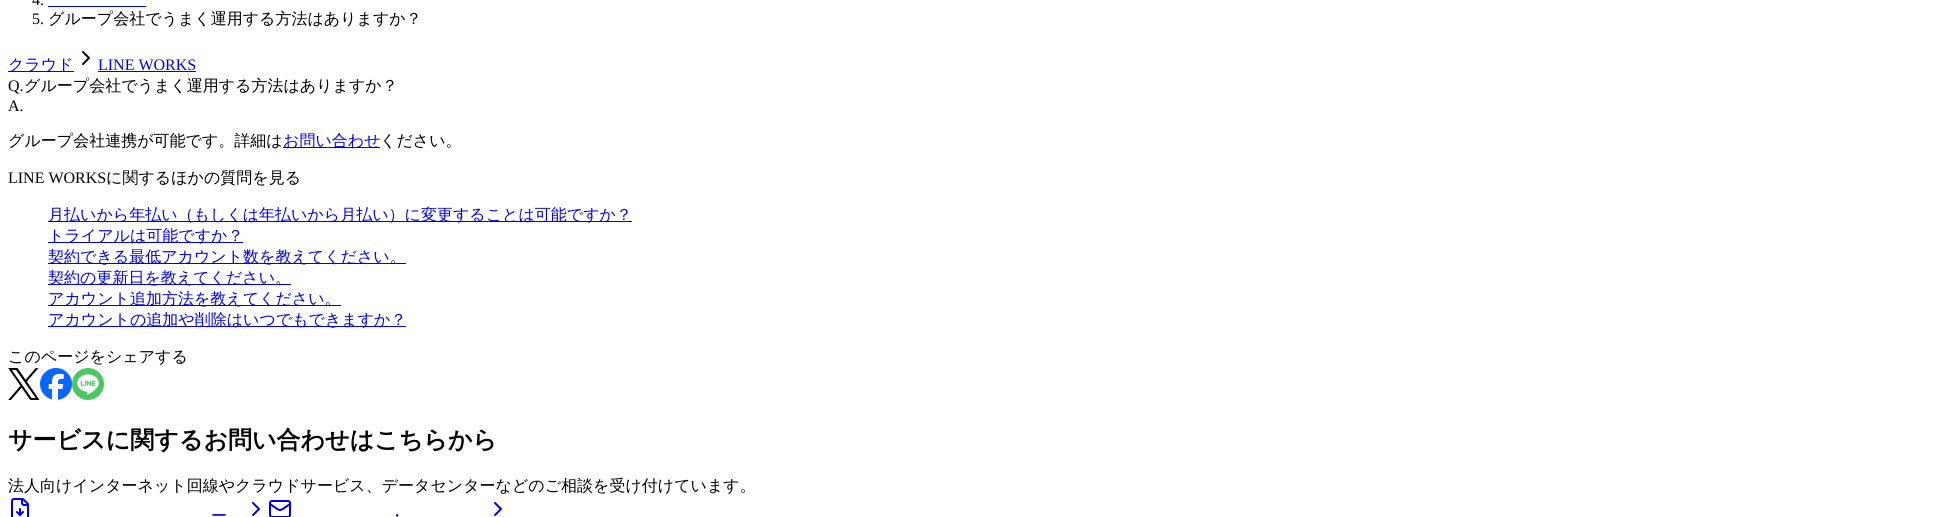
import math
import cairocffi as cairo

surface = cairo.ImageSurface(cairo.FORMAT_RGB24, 1946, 517)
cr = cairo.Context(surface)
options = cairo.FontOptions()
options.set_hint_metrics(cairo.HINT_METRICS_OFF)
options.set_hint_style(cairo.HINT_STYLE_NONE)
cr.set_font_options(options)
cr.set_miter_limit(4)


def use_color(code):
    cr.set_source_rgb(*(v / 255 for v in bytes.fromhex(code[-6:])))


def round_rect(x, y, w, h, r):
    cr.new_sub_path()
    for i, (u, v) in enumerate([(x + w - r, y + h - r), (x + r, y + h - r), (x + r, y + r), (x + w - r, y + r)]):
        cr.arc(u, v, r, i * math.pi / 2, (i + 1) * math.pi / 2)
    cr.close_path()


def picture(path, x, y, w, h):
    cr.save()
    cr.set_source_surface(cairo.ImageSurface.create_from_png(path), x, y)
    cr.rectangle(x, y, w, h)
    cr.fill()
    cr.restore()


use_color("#ffffff")
cr.paint()
cr.select_font_face("Liberation Serif")
cr.set_font_size(16)
use_color("#000000")
cr.move_to(32, 5)
cr.show_text("4.")
use_color("#0000ee")
cr.rectangle(48, 6, 98, 1)
cr.fill()
use_color("#000000")
cr.move_to(32, 24)
cr.show_text("5.")
cr.select_font_face("WenQuanYi Zen Hei Medium")
cr.move_to(48, 24)
cr.show_text("グループ会社でうまく運用する方法はありますか？")
use_color("#0000ee")
cr.rectangle(8, 71, 66, 1)
cr.fill()
cr.move_to(8, 70)
cr.show_text("クラウド")
cr.new_path()
cr.move_to(83, 64)
cr.line_to(89, 58)
cr.line_to(83, 52)
use_color("#000000")
cr.set_line_cap(cairo.LINE_CAP_ROUND)
cr.set_line_join(cairo.LINE_JOIN_ROUND)
cr.stroke()
cr.select_font_face("Liberation Serif")
use_color("#0000ee")
cr.move_to(98, 70)
cr.show_text("LINE WORKS")
cr.rectangle(98, 71, 98, 1)
cr.fill()
use_color("#000000")
cr.move_to(8, 91)
cr.show_text("Q.")
cr.select_font_face("WenQuanYi Zen Hei Medium")
cr.move_to(24, 91)
cr.show_text("グループ会社でうまく運用する方法はありますか？")
cr.select_font_face("Liberation Serif")
cr.move_to(8, 111)
cr.show_text("A.")
cr.select_font_face("WenQuanYi Zen Hei Medium")
cr.move_to(8, 146)
cr.show_text("グループ会社連携が可能です。詳細は")
use_color("#0000ee")
cr.rectangle(283, 147, 97, 1)
cr.fill()
cr.move_to(283, 146)
cr.show_text("お問い合わせ")
use_color("#000000")
cr.move_to(380, 146)
cr.show_text("ください。")
cr.select_font_face("Liberation Serif")
cr.move_to(8, 183)
cr.show_text("LINE WORKS")
cr.select_font_face("WenQuanYi Zen Hei Medium")
cr.move_to(106, 183)
cr.show_text("に関するほかの質問を見る")
use_color("#0000ee")
cr.rectangle(48, 221, 584, 1)
cr.fill()
cr.move_to(48, 220)
cr.show_text("月払いから年払い（もしくは年払いから月払い）に変更することは可能ですか？")
cr.rectangle(48, 242, 195, 1)
cr.fill()
cr.move_to(48, 241)
cr.show_text("トライアルは可能ですか？")
cr.rectangle(48, 263, 358, 1)
cr.fill()
cr.move_to(48, 262)
cr.show_text("契約できる最低アカウント数を教えてください。")
cr.rectangle(48, 284, 243, 1)
cr.fill()
cr.move_to(48, 283)
cr.show_text("契約の更新日を教えてください。")
cr.rectangle(48, 305, 293, 1)
cr.fill()
cr.move_to(48, 304)
cr.show_text("アカウント追加方法を教えてください。")
cr.rectangle(48, 326, 358, 1)
cr.fill()
cr.move_to(48, 325)
cr.show_text("アカウントの追加や削除はいつでもできますか？")
use_color("#000000")
cr.move_to(8, 362)
cr.show_text("このページをシェアする")
picture("img1.png", 8, 368, 32, 32)
picture("img2.png", 40, 368, 32, 32)
picture("img3.png", 72, 368, 32, 32)
cr.select_font_face("WenQuanYi Zen Hei", cairo.FONT_SLANT_NORMAL, cairo.FONT_WEIGHT_BOLD)
cr.set_font_size(24)
cr.move_to(8, 448)
cr.show_text("サービスに関するお問い合わせはこちらから")
cr.select_font_face("WenQuanYi Zen Hei Medium")
cr.set_font_size(16)
cr.move_to(8, 491)
cr.show_text("法人向けインターネット回線やクラウドサービス、データセンターなどのご相談を受け付けています。")
picture("img4.png", 11, 498, 18, 19)
use_color("#0000ee")
cr.move_to(211, 521)
cr.show_text("ー")
cr.new_path()
cr.move_to(253, 515)
cr.line_to(259, 509)
cr.line_to(253, 503)
cr.move_to(290, 504)
cr.curve_to(278, 512, 282, 512, 270, 504)
cr.stroke()
cr.move_to(389, 521)
cr.show_text("・")
round_rect(270, 501, 20, 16, 2)
cr.set_line_cap(cairo.LINE_CAP_BUTT)
cr.set_line_join(cairo.LINE_JOIN_MITER)
cr.stroke()
cr.new_path()
cr.move_to(495, 515)
cr.line_to(501, 509)
cr.line_to(495, 503)
cr.set_line_cap(cairo.LINE_CAP_ROUND)
cr.set_line_join(cairo.LINE_JOIN_ROUND)
cr.stroke()
surface.write_to_png("result.png")
